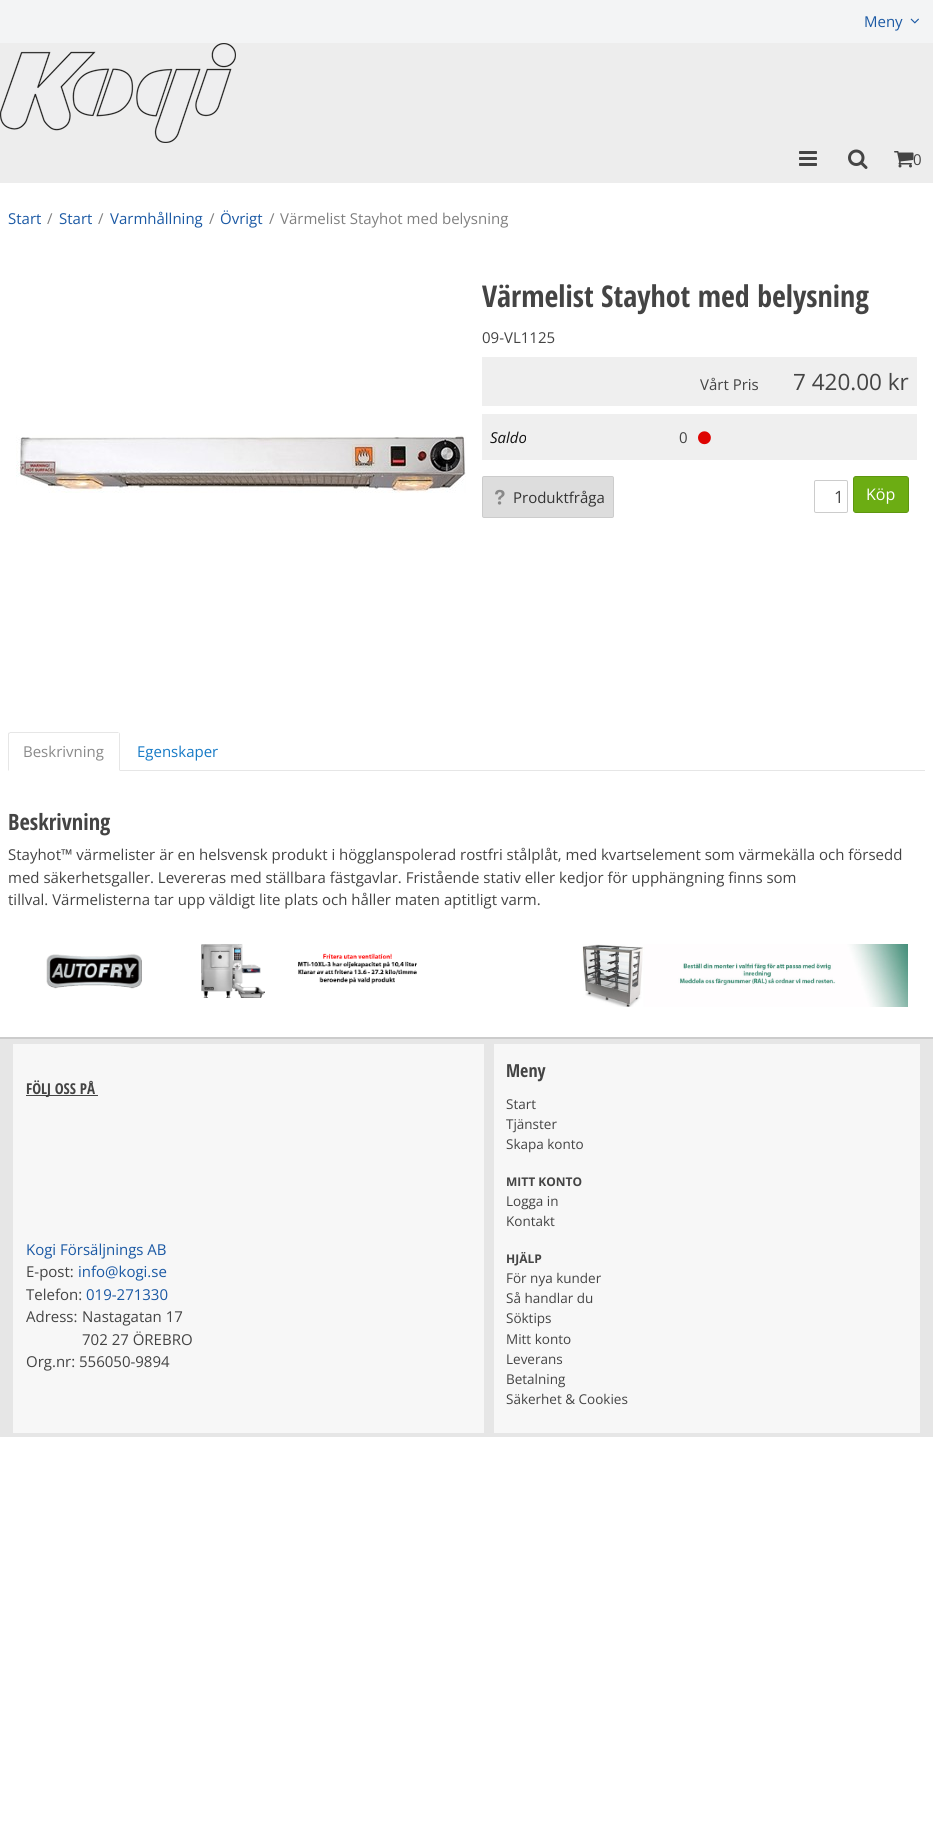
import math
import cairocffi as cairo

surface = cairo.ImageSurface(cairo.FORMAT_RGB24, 933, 1834)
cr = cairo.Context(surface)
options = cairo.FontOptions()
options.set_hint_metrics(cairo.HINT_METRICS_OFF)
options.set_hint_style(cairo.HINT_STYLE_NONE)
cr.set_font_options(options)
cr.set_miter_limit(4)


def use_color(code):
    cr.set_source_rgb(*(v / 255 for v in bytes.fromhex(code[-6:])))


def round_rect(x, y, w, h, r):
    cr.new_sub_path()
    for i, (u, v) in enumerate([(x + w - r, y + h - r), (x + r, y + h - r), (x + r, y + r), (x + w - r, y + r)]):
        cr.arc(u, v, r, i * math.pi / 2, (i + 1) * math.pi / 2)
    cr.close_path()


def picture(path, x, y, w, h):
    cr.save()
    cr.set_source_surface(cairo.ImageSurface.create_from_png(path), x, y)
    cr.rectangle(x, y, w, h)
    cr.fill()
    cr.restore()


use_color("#ffffff")
cr.paint()
use_color("#ededed")
cr.rectangle(0, 43, 933, 140)
cr.fill()
use_color("#f3f4f5")
cr.rectangle(0, 0, 933, 43)
cr.fill()
cr.select_font_face("Open Sans")
cr.set_font_size(15)
use_color("#1b59a4")
cr.move_to(864, 27)
cr.show_text("Meny")
picture("img1.png", 910, 18, 9, 6)
picture("img2.png", 0, 43, 236, 100)
picture("img3.png", 799, 151, 18, 15)
picture("img4.png", 848, 149, 20, 20)
picture("img5.png", 894, 151, 20, 17)
use_color("#444444")
cr.move_to(913, 165)
cr.show_text("0")
use_color("#1b59a4")
cr.move_to(8, 224)
cr.show_text("Start")
use_color("#808080")
cr.move_to(47, 224)
cr.show_text("/")
use_color("#1b59a4")
cr.move_to(59, 224)
cr.show_text("Start")
use_color("#808080")
cr.move_to(98, 224)
cr.show_text("/")
use_color("#1b59a4")
cr.move_to(110, 224)
cr.show_text("Varmhållning")
use_color("#808080")
cr.move_to(209, 224)
cr.show_text("/")
use_color("#1b59a4")
cr.move_to(220, 224)
cr.show_text("Övrigt")
use_color("#808080")
cr.move_to(269, 224)
cr.show_text("/")
cr.move_to(280, 224)
cr.show_text("Värmelist Stayhot med belysning")
picture("img6.png", 16, 435, 450, 58)
cr.select_font_face("Open Sans Condensed", cairo.FONT_SLANT_NORMAL, cairo.FONT_WEIGHT_BOLD)
cr.set_font_size(30)
use_color("#444444")
cr.move_to(482, 307)
cr.show_text("Värmelist Stayhot med belysning")
cr.select_font_face("Open Sans")
cr.set_font_size(15)
cr.move_to(482, 343)
cr.show_text("09-VL1125")
use_color("#efefef")
cr.rectangle(482, 357, 435, 49)
cr.fill()
use_color("#444444")
cr.move_to(700, 390)
cr.show_text("Vårt Pris")
cr.set_font_size(22.5)
cr.move_to(793, 390)
cr.show_text("7 420.00 kr")
use_color("#efefef")
cr.rectangle(482, 414, 435, 46)
cr.fill()
cr.select_font_face("Open Sans", cairo.FONT_SLANT_ITALIC)
cr.set_font_size(15)
use_color("#111111")
cr.move_to(490, 443)
cr.show_text("Saldo")
cr.select_font_face("Open Sans")
use_color("#444444")
cr.move_to(679, 443)
cr.show_text("0")
picture("img7.png", 698, 431, 13, 14)
use_color("#dddddd")
round_rect(482.5, 476.5, 131, 41, 1.5)
cr.fill_preserve()
use_color("#cccccc")
cr.set_line_width(1)
cr.stroke()
picture("img8.png", 495, 489, 10, 16)
use_color("#333333")
cr.move_to(513, 503)
cr.show_text("Produktfråga")
round_rect(814.5, 480.5, 33, 32, 1.5)
use_color("#cccccc")
cr.stroke()
cr.set_font_size(17)
use_color("#444444")
cr.move_to(834, 503)
cr.show_text("1")
use_color("#6cad13")
round_rect(853.5, 476.5, 55, 36, 2.5)
cr.fill_preserve()
use_color("#5e9610")
cr.stroke()
cr.set_font_size(16)
use_color("#ffffff")
cr.move_to(866, 500)
cr.show_text("Köp")
use_color("#e6e6e6")
cr.rectangle(120, 770, 805, 1)
cr.fill()
cr.new_path()
cr.move_to(10, 732)
cr.line_to(9, 733)
cr.line_to(10, 734)
cr.line_to(10, 733)
cr.line_to(119, 733)
cr.line_to(118, 732)
cr.close_path()
cr.fill()
cr.new_path()
cr.move_to(120, 771)
cr.line_to(120, 734)
cr.line_to(119.5, 732.5)
cr.line_to(119, 733)
cr.line_to(119, 770)
cr.close_path()
cr.fill()
cr.new_path()
cr.move_to(8, 771)
cr.line_to(9, 770)
cr.line_to(9, 734)
cr.line_to(9.5, 733.5)
cr.line_to(8.5, 732.5)
cr.line_to(8, 734)
cr.close_path()
cr.fill()
cr.set_font_size(15)
use_color("#8a8a8a")
cr.move_to(23, 757)
cr.show_text("Beskrivning")
use_color("#167ac6")
cr.move_to(137, 757)
cr.show_text("Egenskaper")
cr.select_font_face("Open Sans Condensed", cairo.FONT_SLANT_NORMAL, cairo.FONT_WEIGHT_BOLD)
cr.set_font_size(22.5)
use_color("#444444")
cr.move_to(8, 830)
cr.show_text("Beskrivning")
cr.select_font_face("Open Sans")
cr.set_font_size(15)
cr.move_to(8, 860)
cr.show_text("Stayhot™ värmelister är en helsvensk produkt i högglanspolerad rostfri stålplåt, med kvartselement som värmekälla och försedd")
cr.move_to(8, 883)
cr.show_text("med säkerhetsgaller. Levereras med ställbara fästgavlar. Fristående stativ eller kedjor för upphängning finns som")
cr.move_to(8, 905)
cr.show_text("tillval. Värmelisterna tar upp väldigt lite plats och håller maten aptitligt varm.")
picture("img9.png", 46, 944, 371, 54)
picture("img10.png", 582, 944, 326, 63)
use_color("#e6e6e6")
cr.rectangle(0, 1039, 933, 398)
cr.fill()
use_color("#cccccc")
cr.rectangle(0, 1037, 933, 2)
cr.fill()
use_color("#f7f7f7")
cr.rectangle(13, 1044, 471, 389)
cr.fill()
use_color("#444444")
cr.rectangle(26, 1095, 72, 1)
cr.fill()
cr.select_font_face("Open Sans Condensed", cairo.FONT_SLANT_NORMAL, cairo.FONT_WEIGHT_BOLD)
cr.move_to(26, 1094)
cr.show_text("FÖLJ OSS PÅ")
cr.select_font_face("Open Sans")
use_color("#1b59a4")
cr.move_to(26, 1255)
cr.show_text("Kogi Försäljnings AB")
use_color("#444444")
cr.move_to(26, 1277)
cr.show_text("E-post:")
use_color("#1b59a4")
cr.move_to(78, 1277)
cr.show_text("info@kogi.se")
use_color("#444444")
cr.move_to(26, 1300)
cr.show_text("Telefon:")
use_color("#1b59a4")
cr.move_to(86, 1300)
cr.show_text("019-271330")
use_color("#444444")
cr.move_to(26, 1322)
cr.show_text("Adress:")
cr.move_to(82, 1322)
cr.show_text("Nastagatan 17")
cr.move_to(82, 1345)
cr.show_text("702 27 ÖREBRO")
cr.move_to(26, 1367)
cr.show_text("Org.nr:")
cr.move_to(79, 1367)
cr.show_text("556050-9894")
use_color("#f7f7f7")
cr.rectangle(494, 1044, 426, 389)
cr.fill()
cr.select_font_face("Open Sans Condensed", cairo.FONT_SLANT_NORMAL, cairo.FONT_WEIGHT_BOLD)
cr.set_font_size(18)
use_color("#444444")
cr.move_to(506, 1077)
cr.show_text("Meny")
cr.select_font_face("Open Sans")
cr.set_font_size(13.5)
cr.move_to(506, 1109)
cr.show_text("Start")
cr.move_to(506, 1129)
cr.show_text("Tjänster")
cr.move_to(506, 1149)
cr.show_text("Skapa konto")
cr.select_font_face("Open Sans", cairo.FONT_SLANT_NORMAL, cairo.FONT_WEIGHT_BOLD)
cr.set_font_size(12)
cr.move_to(506, 1186)
cr.show_text("MITT KONTO")
cr.select_font_face("Open Sans")
cr.set_font_size(13.5)
cr.move_to(506, 1206)
cr.show_text("Logga in")
cr.move_to(506, 1226)
cr.show_text("Kontakt")
cr.select_font_face("Open Sans", cairo.FONT_SLANT_NORMAL, cairo.FONT_WEIGHT_BOLD)
cr.set_font_size(12)
cr.move_to(506, 1263)
cr.show_text("HJÄLP")
cr.select_font_face("Open Sans")
cr.set_font_size(13.5)
cr.move_to(506, 1283)
cr.show_text("För nya kunder")
cr.move_to(506, 1303)
cr.show_text("Så handlar du")
cr.move_to(506, 1323)
cr.show_text("Söktips")
cr.move_to(506, 1344)
cr.show_text("Mitt konto")
cr.move_to(506, 1364)
cr.show_text("Leverans")
cr.move_to(506, 1384)
cr.show_text("Betalning")
cr.move_to(506, 1404)
cr.show_text("Säkerhet & Cookies")
surface.write_to_png("result.png")
